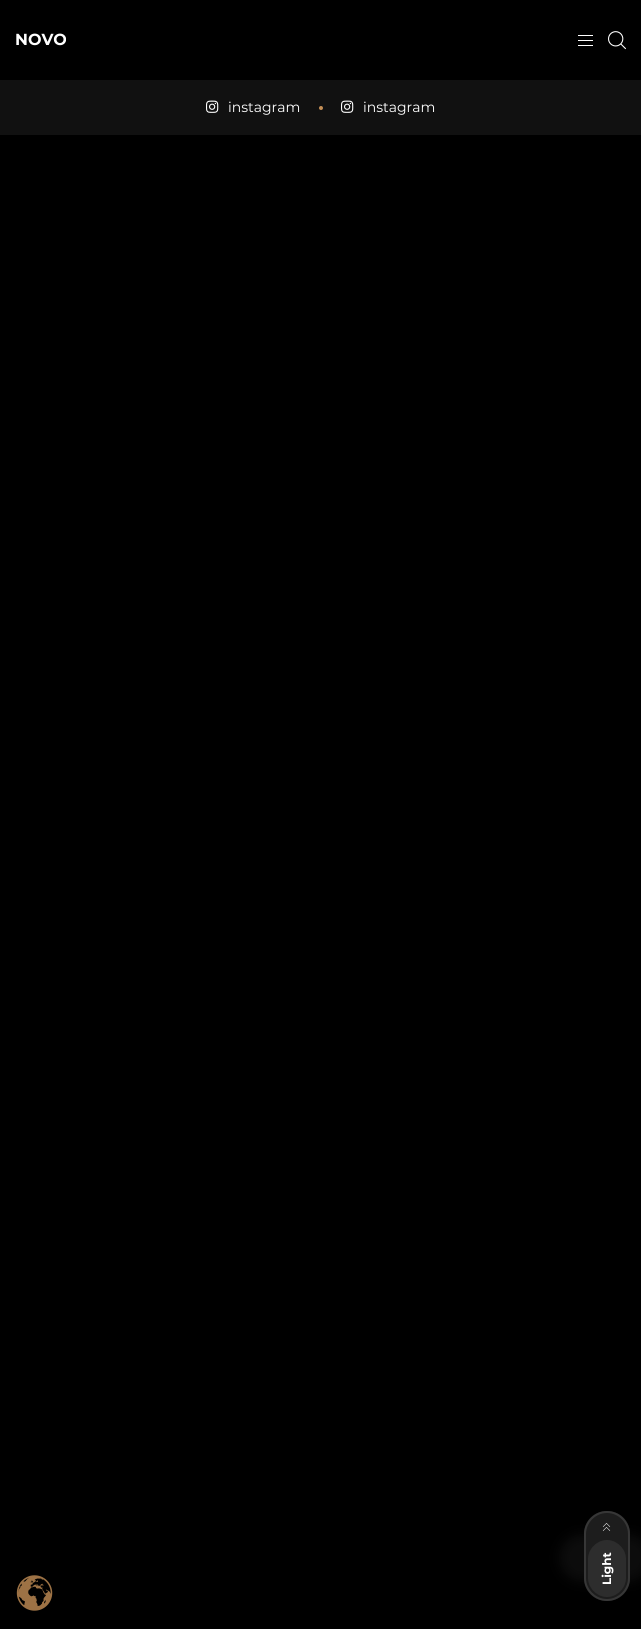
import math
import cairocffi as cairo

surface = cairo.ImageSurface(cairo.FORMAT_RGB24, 641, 1629)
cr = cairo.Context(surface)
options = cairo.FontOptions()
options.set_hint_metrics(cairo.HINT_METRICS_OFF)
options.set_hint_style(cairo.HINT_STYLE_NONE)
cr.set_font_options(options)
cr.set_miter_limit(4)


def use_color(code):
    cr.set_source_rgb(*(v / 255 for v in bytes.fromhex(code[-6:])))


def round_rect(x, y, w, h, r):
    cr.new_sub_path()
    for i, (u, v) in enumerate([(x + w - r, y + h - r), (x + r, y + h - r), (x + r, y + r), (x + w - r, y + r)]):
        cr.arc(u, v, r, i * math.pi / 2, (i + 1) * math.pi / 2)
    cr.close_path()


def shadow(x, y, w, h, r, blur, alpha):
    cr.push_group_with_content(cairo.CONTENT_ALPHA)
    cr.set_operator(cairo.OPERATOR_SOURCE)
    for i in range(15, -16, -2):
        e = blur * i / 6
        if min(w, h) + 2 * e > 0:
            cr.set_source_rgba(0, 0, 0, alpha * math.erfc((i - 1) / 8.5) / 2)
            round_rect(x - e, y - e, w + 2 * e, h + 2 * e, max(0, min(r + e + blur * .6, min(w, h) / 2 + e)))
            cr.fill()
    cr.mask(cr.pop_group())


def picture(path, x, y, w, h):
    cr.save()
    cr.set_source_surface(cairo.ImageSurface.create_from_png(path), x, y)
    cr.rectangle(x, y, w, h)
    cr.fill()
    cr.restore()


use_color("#000000")
cr.paint()
cr.select_font_face("Montserrat", cairo.FONT_SLANT_NORMAL, cairo.FONT_WEIGHT_BOLD)
cr.set_font_size(16)
use_color("#ffffff")
cr.move_to(15, 45)
cr.show_text("NOVO")
cr.rectangle(578, 35, 15, 1)
cr.fill()
cr.rectangle(578, 40, 15, 1)
cr.fill()
cr.rectangle(578, 45, 15, 1)
cr.fill()
picture("img1.png", 608, 31, 18, 19)
use_color("#111111")
cr.rectangle(0, 80, 641, 55)
cr.fill()
picture("img2.png", 206, 100, 13, 13)
cr.select_font_face("Montserrat")
cr.set_font_size(14)
use_color("#ffffff")
cr.move_to(228, 112)
cr.show_text("instagram")
use_color("#c48f56")
cr.new_path()
cr.arc(321, 108, 2, 0, 2 * math.pi)
cr.fill()
picture("img2.png", 341, 100, 13, 13)
use_color("#ffffff")
cr.move_to(363, 112)
cr.show_text("instagram")
use_color("#313131")
shadow(560, 1535, 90, 46, 23, 6, 0.25)
use_color("#1d1d1d")
cr.new_path()
cr.move_to(584, 1578)
cr.line_to(584, 1534)
cr.curve_to(584, 1521, 594, 1511, 607, 1511)
cr.curve_to(620, 1511, 630, 1521, 630, 1534)
cr.line_to(630, 1578)
cr.curve_to(630, 1591, 620, 1601, 607, 1601)
cr.curve_to(594, 1601, 584, 1591, 584, 1578)
cr.close_path()
cr.fill()
cr.new_path()
cr.move_to(585, 1578)
cr.line_to(585, 1534)
cr.curve_to(585, 1522, 595, 1512, 607, 1512)
cr.curve_to(619, 1512, 629, 1522, 629, 1534)
cr.line_to(629, 1578)
cr.curve_to(629, 1590, 619, 1600, 607, 1600)
cr.curve_to(595, 1600, 585, 1590, 585, 1578)
cr.close_path()
use_color("#373737")
cr.stroke()
picture("img3.png", 602, 1523, 9, 4)
picture("img3.png", 602, 1527, 9, 4)
use_color("#2d2d2d")
cr.new_path()
cr.move_to(588, 1578)
cr.line_to(588, 1559)
cr.curve_to(588, 1549, 597, 1540, 607, 1540)
cr.curve_to(617, 1540, 626, 1549, 626, 1559)
cr.line_to(626, 1578)
cr.curve_to(626, 1588, 617, 1597, 607, 1597)
cr.curve_to(597, 1597, 588, 1588, 588, 1578)
cr.close_path()
cr.fill()
cr.select_font_face("Montserrat", cairo.FONT_SLANT_NORMAL, cairo.FONT_WEIGHT_BOLD)
cr.set_font_size(12)
use_color("#ffffff")
cr.save()
cr.translate(611, 1585)
cr.rotate(-90 * math.pi / 180)
cr.move_to(0, 0)
cr.show_text("Light")
cr.restore()
picture("img4.png", 16, 1575, 37, 36)
surface.write_to_png("result.png")
